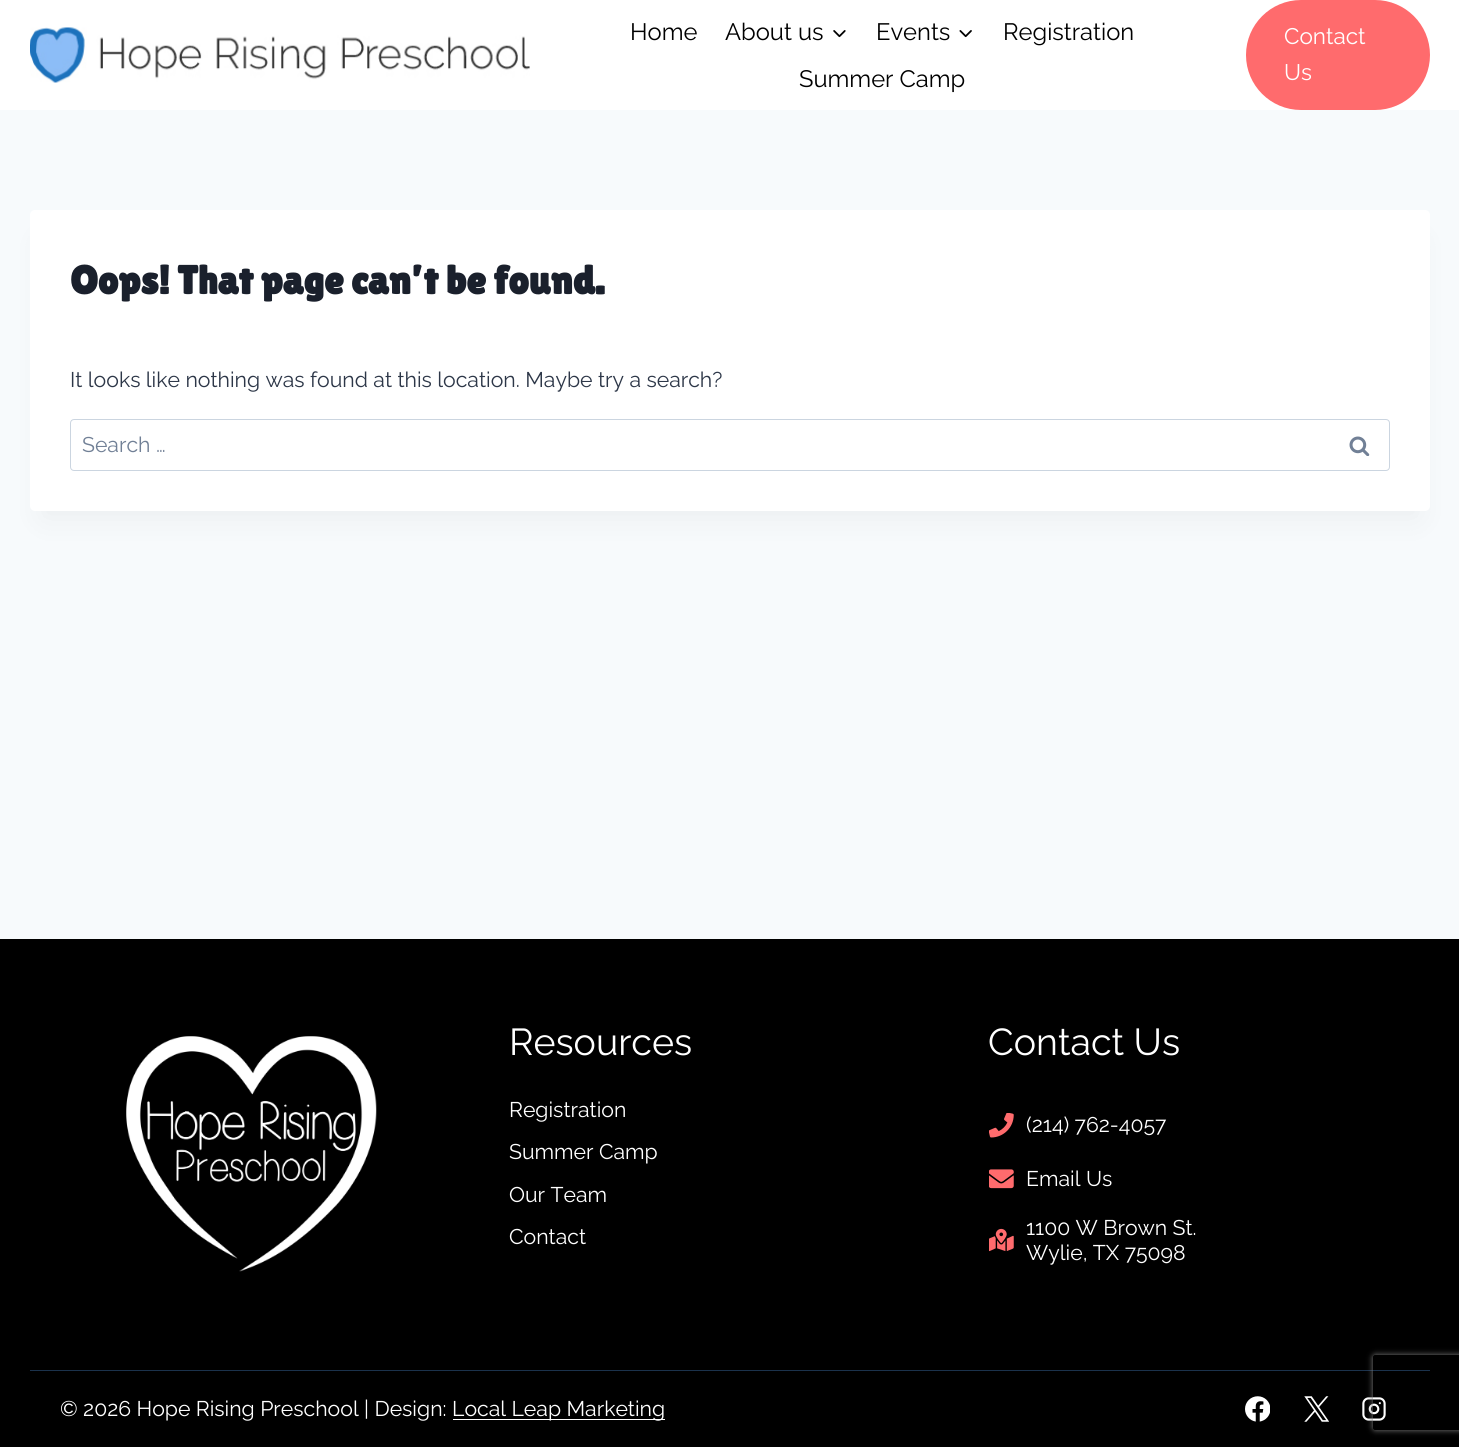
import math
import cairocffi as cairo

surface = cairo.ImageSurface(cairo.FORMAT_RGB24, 1459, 1447)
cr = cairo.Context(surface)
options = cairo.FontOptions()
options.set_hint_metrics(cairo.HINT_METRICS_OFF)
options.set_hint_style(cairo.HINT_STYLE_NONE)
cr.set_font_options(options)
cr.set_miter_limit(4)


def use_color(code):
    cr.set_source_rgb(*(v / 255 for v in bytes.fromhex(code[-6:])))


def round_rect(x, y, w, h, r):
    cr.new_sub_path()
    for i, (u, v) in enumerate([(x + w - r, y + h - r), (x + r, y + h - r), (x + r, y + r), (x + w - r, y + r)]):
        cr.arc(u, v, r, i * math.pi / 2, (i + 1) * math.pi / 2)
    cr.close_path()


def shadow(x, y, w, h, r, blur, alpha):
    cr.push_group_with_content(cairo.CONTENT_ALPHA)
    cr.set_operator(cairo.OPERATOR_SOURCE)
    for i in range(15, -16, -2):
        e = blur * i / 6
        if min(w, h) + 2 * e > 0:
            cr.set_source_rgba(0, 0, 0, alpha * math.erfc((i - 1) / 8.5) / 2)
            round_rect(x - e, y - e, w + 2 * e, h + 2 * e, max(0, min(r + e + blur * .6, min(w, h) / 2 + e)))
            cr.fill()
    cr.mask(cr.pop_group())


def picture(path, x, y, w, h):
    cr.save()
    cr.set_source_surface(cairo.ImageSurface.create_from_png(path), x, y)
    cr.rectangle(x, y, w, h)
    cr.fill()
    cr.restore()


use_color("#f7fafc")
cr.paint()
use_color("#ffffff")
cr.rectangle(0, 0, 1459, 110)
cr.fill()
picture("img1.png", 30, 27, 500, 56)
cr.select_font_face("Raleway Thin")
cr.set_font_size(23.75)
use_color("#000000")
cr.move_to(630, 40)
cr.show_text("Home")
cr.move_to(725, 40)
cr.show_text("About us")
picture("img2.png", 833, 30, 13, 8)
cr.move_to(876, 40)
cr.show_text("Events")
picture("img3.png", 959, 30, 13, 8)
cr.move_to(1003, 40)
cr.show_text("Registration")
cr.move_to(799, 87)
cr.show_text("Summer Camp")
use_color("#ff6b6d")
round_rect(1246, 0, 184, 110, 55)
cr.fill()
cr.set_font_size(22.5)
use_color("#ffffff")
cr.move_to(1284, 44)
cr.show_text("Contact")
cr.move_to(1284, 80)
cr.show_text("Us")
use_color("#000000")
shadow(43, 241, 1375, 277, 0, 15.5, 0.05)
use_color("#ffffff")
round_rect(30, 210, 1400, 301, 5)
cr.fill()
cr.select_font_face("Lilita One", cairo.FONT_SLANT_NORMAL, cairo.FONT_WEIGHT_BOLD)
cr.set_font_size(40)
use_color("#1a202c")
cr.move_to(70, 294)
cr.show_text("Oops! That page can’t be found.")
cr.select_font_face("Raleway Thin")
cr.set_font_size(21.25)
use_color("#2d3748")
cr.move_to(70, 387)
cr.show_text("It looks like nothing was found at this location. Maybe try a search?")
round_rect(70.5, 419.5, 1319, 51, 3.5)
use_color("#cbd5e0")
cr.set_line_width(1)
cr.stroke()
use_color("#718096")
cr.move_to(82, 452)
cr.show_text("Search …")
picture("img4.png", 1349, 436, 21, 20)
use_color("#000000")
cr.rectangle(0, 939, 1459, 508)
cr.fill()
picture("img5.png", 126, 1036, 251, 236)
cr.set_font_size(37.5)
use_color("#ffffff")
cr.move_to(509, 1055)
cr.show_text("Resources")
cr.set_font_size(21.25)
cr.move_to(509, 1117)
cr.show_text("Registration")
cr.move_to(509, 1159)
cr.show_text("Summer Camp")
cr.move_to(509, 1202)
cr.show_text("Our Team")
cr.move_to(509, 1244)
cr.show_text("Contact")
cr.set_font_size(37.5)
cr.move_to(988, 1055)
cr.show_text("Contact Us")
picture("img6.png", 989, 1113, 25, 25)
cr.set_font_size(21.25)
cr.move_to(1026, 1132)
cr.show_text("(214) 762-4057")
picture("img7.png", 989, 1169, 25, 20)
cr.move_to(1026, 1186)
cr.show_text("Email Us")
picture("img8.png", 989, 1228, 25, 24)
cr.move_to(1026, 1235)
cr.show_text("1100 W Brown St.")
cr.move_to(1026, 1260)
cr.show_text("Wylie, TX 75098")
use_color("#1b324c")
cr.rectangle(30, 1370, 1400, 1)
cr.fill()
use_color("#ffffff")
cr.move_to(60, 1416)
cr.show_text("© 2026 Hope Rising Preschool | Design:")
cr.rectangle(453, 1419, 212, 1)
cr.fill()
cr.move_to(452, 1416)
cr.show_text("Local Leap Marketing")
picture("img9.png", 1245, 1396, 25, 26)
picture("img10.png", 1304, 1396, 25, 26)
picture("img11.png", 1362, 1397, 24, 24)
cr.save()
cr.set_fill_rule(cairo.FILL_RULE_EVEN_ODD)
cr.new_path()
cr.move_to(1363, 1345)
cr.line_to(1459, 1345)
cr.line_to(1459, 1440)
cr.line_to(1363, 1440)
cr.close_path()
cr.move_to(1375.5, 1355)
cr.line_to(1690.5, 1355)
cr.curve_to(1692, 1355, 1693, 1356, 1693, 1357.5)
cr.line_to(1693, 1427.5)
cr.curve_to(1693, 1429, 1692, 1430, 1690.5, 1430)
cr.line_to(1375.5, 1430)
cr.curve_to(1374, 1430, 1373, 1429, 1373, 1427.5)
cr.line_to(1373, 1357.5)
cr.curve_to(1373, 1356, 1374, 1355, 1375.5, 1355)
cr.close_path()
cr.clip()
use_color("#808080")
shadow(1373, 1355, 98, 75, 2.5, 3, 1)
cr.restore()
surface.write_to_png("result.png")
